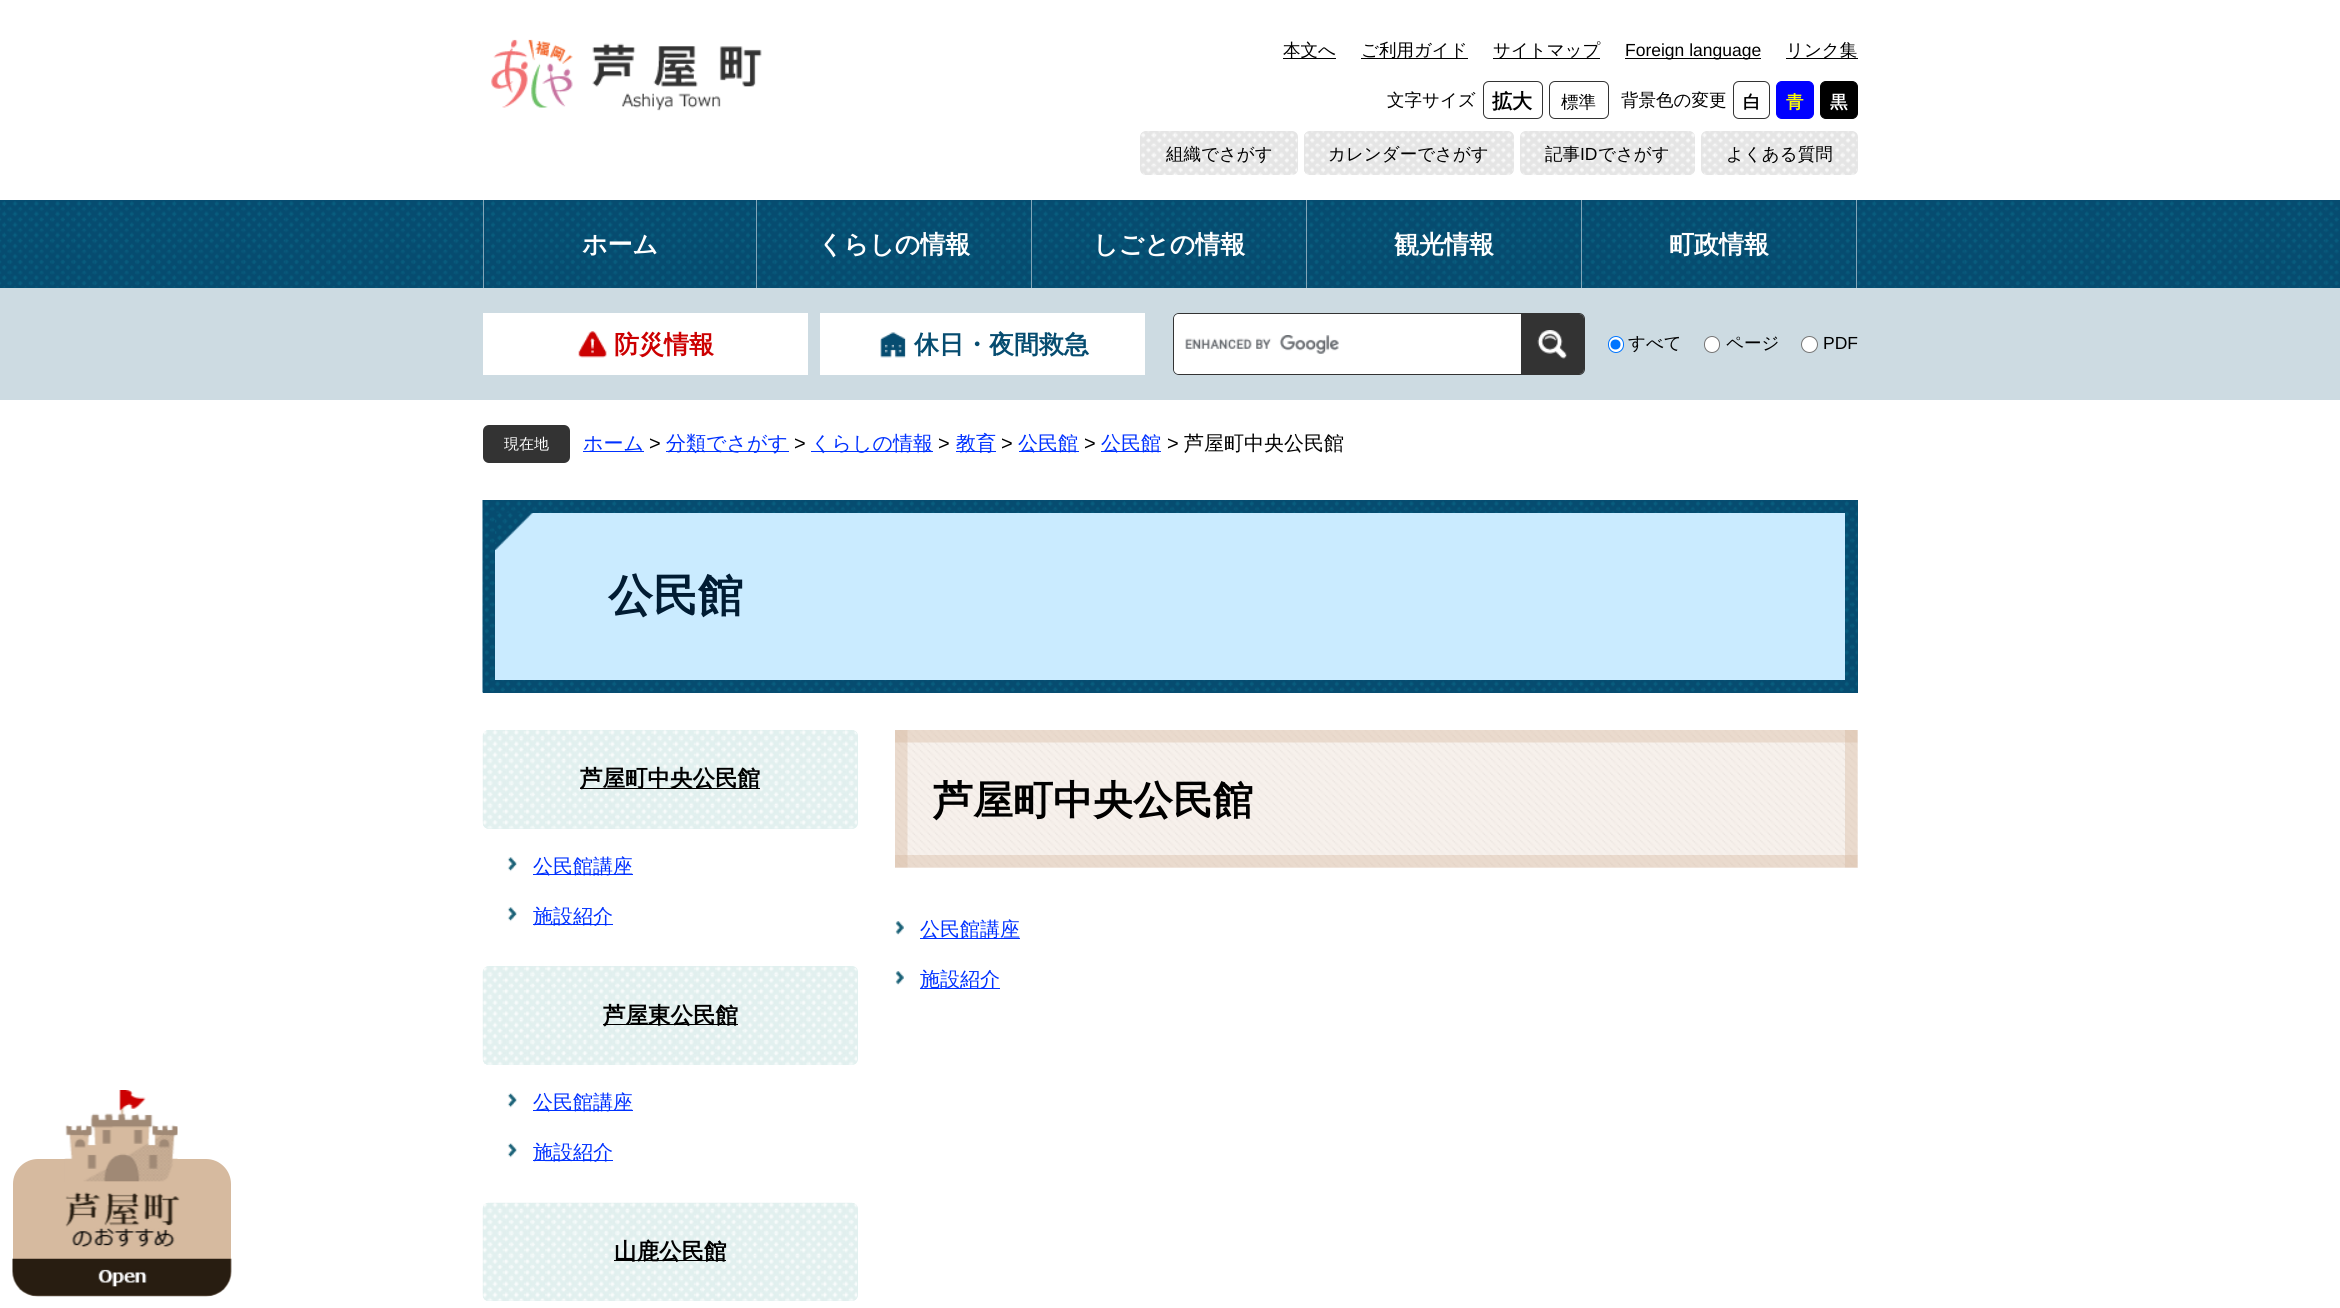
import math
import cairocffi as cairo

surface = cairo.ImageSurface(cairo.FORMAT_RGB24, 2340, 1308)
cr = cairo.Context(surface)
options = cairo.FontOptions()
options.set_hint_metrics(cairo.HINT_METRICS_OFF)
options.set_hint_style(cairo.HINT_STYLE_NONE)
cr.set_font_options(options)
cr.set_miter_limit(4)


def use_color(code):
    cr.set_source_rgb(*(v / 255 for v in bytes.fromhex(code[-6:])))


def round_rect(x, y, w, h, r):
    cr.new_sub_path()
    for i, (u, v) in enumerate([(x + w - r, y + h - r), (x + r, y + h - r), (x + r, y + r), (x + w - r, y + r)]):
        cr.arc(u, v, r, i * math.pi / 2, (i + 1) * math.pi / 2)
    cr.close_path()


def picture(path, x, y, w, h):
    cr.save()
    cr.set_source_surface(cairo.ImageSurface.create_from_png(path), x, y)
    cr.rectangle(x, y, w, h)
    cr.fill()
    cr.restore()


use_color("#ffffff")
cr.paint()
picture("img1.png", 491, 39, 271, 72)
use_color("#000000")
cr.rectangle(1283, 58, 53, 1)
cr.fill()
cr.select_font_face("WenQuanYi Zen Hei Medium")
cr.set_font_size(17.5)
cr.move_to(1283, 56)
cr.show_text("本文へ")
cr.rectangle(1361, 58, 107, 1)
cr.fill()
cr.move_to(1361, 56)
cr.show_text("ご利用ガイド")
cr.rectangle(1493, 58, 107, 1)
cr.fill()
cr.move_to(1493, 56)
cr.show_text("サイトマップ")
cr.rectangle(1625, 58, 136, 1)
cr.fill()
cr.select_font_face("Liberation Sans")
cr.move_to(1625, 56)
cr.show_text("Foreign language")
cr.rectangle(1786, 58, 72, 1)
cr.fill()
cr.select_font_face("WenQuanYi Zen Hei Medium")
cr.move_to(1786, 56)
cr.show_text("リンク集")
cr.move_to(1387, 106)
cr.show_text("文字サイズ")
round_rect(1483.5, 81.5, 59, 37, 5.5)
use_color("#333333")
cr.set_line_width(1)
cr.stroke()
cr.select_font_face("WenQuanYi Zen Hei", cairo.FONT_SLANT_NORMAL, cairo.FONT_WEIGHT_BOLD)
cr.set_font_size(20)
use_color("#000000")
cr.move_to(1492, 108)
cr.show_text("拡大")
round_rect(1549.5, 81.5, 59, 37, 5.5)
use_color("#333333")
cr.stroke()
cr.select_font_face("WenQuanYi Zen Hei Medium")
cr.set_font_size(17.5)
use_color("#000000")
cr.move_to(1561, 108)
cr.show_text("標準")
cr.move_to(1621, 106)
cr.show_text("背景色の変更")
round_rect(1733.5, 81.5, 36, 37, 5.5)
use_color("#333333")
cr.stroke()
cr.select_font_face("WenQuanYi Zen Hei", cairo.FONT_SLANT_NORMAL, cairo.FONT_WEIGHT_BOLD)
use_color("#000000")
cr.move_to(1743, 108)
cr.show_text("白")
use_color("#0000ff")
round_rect(1776.5, 81.5, 37, 37, 5.5)
cr.fill_preserve()
cr.stroke()
use_color("#ffff00")
cr.move_to(1786, 108)
cr.show_text("青")
use_color("#000000")
round_rect(1820.5, 81.5, 37, 37, 5.5)
cr.fill_preserve()
cr.stroke()
use_color("#ffffff")
cr.move_to(1830, 108)
cr.show_text("黒")
use_color("#e5e5e5")
round_rect(1140, 131, 158, 44, 6)
cr.fill()
picture("img2.png", 1141, 131, 157, 44)
cr.select_font_face("WenQuanYi Zen Hei Medium")
use_color("#000000")
cr.move_to(1166, 160)
cr.show_text("組織でさがす")
use_color("#e5e5e5")
round_rect(1304, 131, 210, 44, 6)
cr.fill()
picture("img3.png", 1304, 131, 210, 44)
use_color("#000000")
cr.move_to(1328, 160)
cr.show_text("カレンダーでさがす")
use_color("#e5e5e5")
round_rect(1520, 131, 175, 44, 6)
cr.fill()
picture("img4.png", 1521, 131, 174, 44)
use_color("#000000")
cr.move_to(1545, 160)
cr.show_text("記事")
cr.select_font_face("Liberation Sans")
cr.move_to(1580, 160)
cr.show_text("ID")
cr.select_font_face("WenQuanYi Zen Hei Medium")
cr.move_to(1598, 160)
cr.show_text("でさがす")
use_color("#e5e5e5")
round_rect(1701, 131, 157, 44, 6)
cr.fill()
picture("img5.png", 1702, 131, 156, 44)
use_color("#000000")
cr.move_to(1726, 160)
cr.show_text("よくある質問")
use_color("#064c70")
cr.rectangle(0, 200, 2340, 88)
cr.fill()
picture("img6.png", 0, 201, 2339, 87)
use_color("#83a6b8")
cr.rectangle(756, 200, 1, 88)
cr.fill()
cr.rectangle(483, 200, 1, 88)
cr.fill()
cr.select_font_face("WenQuanYi Zen Hei", cairo.FONT_SLANT_NORMAL, cairo.FONT_WEIGHT_BOLD)
cr.set_font_size(25)
use_color("#ffffff")
cr.move_to(582, 253)
cr.show_text("ホーム")
use_color("#83a6b8")
cr.rectangle(1031, 200, 1, 88)
cr.fill()
use_color("#ffffff")
cr.move_to(818, 253)
cr.show_text("くらしの情報")
use_color("#83a6b8")
cr.rectangle(1306, 200, 1, 88)
cr.fill()
use_color("#ffffff")
cr.move_to(1093, 253)
cr.show_text("しごとの情報")
use_color("#83a6b8")
cr.rectangle(1581, 200, 1, 88)
cr.fill()
use_color("#ffffff")
cr.move_to(1394, 253)
cr.show_text("観光情報")
use_color("#83a6b8")
cr.rectangle(1856, 200, 1, 88)
cr.fill()
use_color("#ffffff")
cr.move_to(1669, 253)
cr.show_text("町政情報")
use_color("#cddbe2")
cr.rectangle(0, 288, 2340, 112)
cr.fill()
use_color("#ffffff")
cr.rectangle(483, 313, 325, 62)
cr.fill()
picture("img7.png", 578, 331, 29, 27)
use_color("#cc0001")
cr.move_to(614, 353)
cr.show_text("防災情報")
use_color("#ffffff")
cr.rectangle(820, 313, 325, 62)
cr.fill()
picture("img8.png", 880, 332, 26, 26)
use_color("#064c70")
cr.move_to(914, 353)
cr.show_text("休日・夜間救急")
round_rect(1173.5, 313.5, 411, 61, 5.5)
use_color("#333333")
cr.stroke()
use_color("#ffffff")
cr.new_path()
cr.move_to(1179, 314)
cr.line_to(1521, 314)
cr.line_to(1521, 374)
cr.line_to(1179, 374)
cr.curve_to(1176, 374, 1174, 372, 1174, 369)
cr.line_to(1174, 319)
cr.curve_to(1174, 316, 1176, 314, 1179, 314)
cr.close_path()
cr.fill()
picture("img9.png", 1185, 335, 154, 19)
use_color("#333333")
cr.new_path()
cr.move_to(1521, 314)
cr.line_to(1579, 314)
cr.curve_to(1582, 314, 1584, 316, 1584, 319)
cr.line_to(1584, 369)
cr.curve_to(1584, 372, 1582, 374, 1579, 374)
cr.line_to(1521, 374)
cr.close_path()
cr.fill()
picture("img10.png", 1537, 330, 30, 29)
use_color("#ffffff")
round_rect(1608.5, 336.5, 15, 16, 7.5)
cr.fill_preserve()
use_color("#0075ff")
cr.stroke()
cr.arc(1615.5, 344.5, 5, 0, 2 * math.pi)
cr.fill()
cr.select_font_face("WenQuanYi Zen Hei Medium")
cr.set_font_size(17.5)
use_color("#000000")
cr.move_to(1628, 349)
cr.show_text("すべて")
use_color("#ffffff")
round_rect(1704.5, 336.5, 15, 16, 7.5)
cr.fill_preserve()
use_color("#767676")
cr.stroke()
use_color("#000000")
cr.move_to(1726, 349)
cr.show_text("ページ")
use_color("#ffffff")
cr.new_path()
cr.arc(1809.5, 344.5, 8, 0, 2 * math.pi)
cr.fill_preserve()
use_color("#767676")
cr.stroke()
cr.select_font_face("Liberation Sans")
use_color("#000000")
cr.move_to(1823, 349)
cr.show_text("PDF")
use_color("#333333")
round_rect(483, 425, 87, 38, 6)
cr.fill()
cr.select_font_face("WenQuanYi Zen Hei Medium")
cr.set_font_size(15)
use_color("#ffffff")
cr.move_to(504, 449)
cr.show_text("現在地")
use_color("#0031ff")
cr.rectangle(583, 451, 61, 1)
cr.fill()
cr.set_font_size(20)
cr.move_to(583, 450)
cr.show_text("ホーム")
cr.select_font_face("Liberation Sans")
use_color("#000000")
cr.move_to(649, 450)
cr.show_text(">")
use_color("#0031ff")
cr.rectangle(666, 451, 123, 1)
cr.fill()
cr.select_font_face("WenQuanYi Zen Hei Medium")
cr.move_to(666, 450)
cr.show_text("分類でさがす")
cr.select_font_face("Liberation Sans")
use_color("#000000")
cr.move_to(794, 450)
cr.show_text(">")
use_color("#0031ff")
cr.rectangle(811, 451, 122, 1)
cr.fill()
cr.select_font_face("WenQuanYi Zen Hei Medium")
cr.move_to(811, 450)
cr.show_text("くらしの情報")
cr.select_font_face("Liberation Sans")
use_color("#000000")
cr.move_to(938, 450)
cr.show_text(">")
use_color("#0031ff")
cr.rectangle(956, 451, 40, 1)
cr.fill()
cr.select_font_face("WenQuanYi Zen Hei Medium")
cr.move_to(956, 450)
cr.show_text("教育")
cr.select_font_face("Liberation Sans")
use_color("#000000")
cr.move_to(1001, 450)
cr.show_text(">")
use_color("#0031ff")
cr.rectangle(1019, 451, 60, 1)
cr.fill()
cr.select_font_face("WenQuanYi Zen Hei Medium")
cr.move_to(1018, 450)
cr.show_text("公民館")
cr.select_font_face("Liberation Sans")
use_color("#000000")
cr.move_to(1084, 450)
cr.show_text(">")
use_color("#0031ff")
cr.rectangle(1101, 451, 60, 1)
cr.fill()
cr.select_font_face("WenQuanYi Zen Hei Medium")
cr.move_to(1101, 450)
cr.show_text("公民館")
cr.select_font_face("Liberation Sans")
use_color("#000000")
cr.move_to(1167, 450)
cr.show_text(">")
cr.select_font_face("WenQuanYi Zen Hei Medium")
cr.move_to(1184, 450)
cr.show_text("芦屋町中央公民館")
use_color("#064c70")
cr.rectangle(483, 500, 1375, 193)
cr.fill()
picture("img11.png", 482, 500, 1376, 193)
use_color("#caebff")
cr.rectangle(495, 513, 1350, 167)
cr.fill()
picture("img12.png", 495, 512, 38, 38)
cr.select_font_face("WenQuanYi Zen Hei", cairo.FONT_SLANT_NORMAL, cairo.FONT_WEIGHT_BOLD)
cr.set_font_size(45)
use_color("#011c33")
cr.move_to(608, 611)
cr.show_text("公民館")
use_color("#d6ba9f")
round_rect(13, 1159, 218, 137, 25)
cr.fill()
picture("img13.png", 12, 1258, 220, 39)
picture("img14.png", 98, 1269, 49, 18)
picture("img15.png", 64, 1090, 114, 92)
picture("img16.png", 65, 1192, 115, 55)
use_color("#e2f0ef")
round_rect(483, 730, 375, 99, 6)
cr.fill()
picture("img17.png", 482, 730, 376, 99)
use_color("#000000")
cr.rectangle(580, 788, 180, 1)
cr.fill()
cr.set_font_size(22.5)
cr.move_to(580, 786)
cr.show_text("芦屋町中央公民館")
picture("img18.png", 507, 857, 10, 15)
use_color("#0031ff")
cr.rectangle(533, 874, 100, 1)
cr.fill()
cr.select_font_face("WenQuanYi Zen Hei Medium")
cr.set_font_size(20)
cr.move_to(533, 873)
cr.show_text("公民館講座")
picture("img18.png", 507, 907, 10, 15)
cr.rectangle(533, 924, 80, 1)
cr.fill()
cr.move_to(533, 923)
cr.show_text("施設紹介")
use_color("#e2f0ef")
round_rect(483, 966, 375, 99, 6)
cr.fill()
picture("img19.png", 482, 966, 376, 99)
use_color("#000000")
cr.rectangle(603, 1024, 135, 1)
cr.fill()
cr.select_font_face("WenQuanYi Zen Hei", cairo.FONT_SLANT_NORMAL, cairo.FONT_WEIGHT_BOLD)
cr.set_font_size(22.5)
cr.move_to(603, 1023)
cr.show_text("芦屋東公民館")
picture("img20.png", 507, 1093, 10, 15)
use_color("#0031ff")
cr.rectangle(533, 1110, 100, 1)
cr.fill()
cr.select_font_face("WenQuanYi Zen Hei Medium")
cr.set_font_size(20)
cr.move_to(533, 1109)
cr.show_text("公民館講座")
picture("img20.png", 507, 1143, 10, 15)
cr.rectangle(533, 1160, 80, 1)
cr.fill()
cr.move_to(533, 1159)
cr.show_text("施設紹介")
use_color("#e2f0ef")
round_rect(483, 1203, 375, 98, 6)
cr.fill()
picture("img21.png", 482, 1202, 376, 99)
use_color("#000000")
cr.rectangle(614, 1260, 112, 1)
cr.fill()
cr.select_font_face("WenQuanYi Zen Hei", cairo.FONT_SLANT_NORMAL, cairo.FONT_WEIGHT_BOLD)
cr.set_font_size(22.5)
cr.move_to(614, 1259)
cr.show_text("山鹿公民館")
use_color("#f7f1ec")
cr.rectangle(895, 730, 963, 138)
cr.fill()
picture("img22.png", 895, 730, 963, 138)
cr.set_font_size(40)
use_color("#000000")
cr.move_to(933, 814)
cr.show_text("芦屋町中央公民館")
picture("img23.png", 895, 921, 9, 14)
use_color("#0031ff")
cr.rectangle(920, 938, 100, 1)
cr.fill()
cr.select_font_face("WenQuanYi Zen Hei Medium")
cr.set_font_size(20)
cr.move_to(920, 936)
cr.show_text("公民館講座")
picture("img23.png", 895, 971, 9, 14)
cr.rectangle(920, 988, 80, 1)
cr.fill()
cr.move_to(920, 986)
cr.show_text("施設紹介")
surface.write_to_png("result.png")
